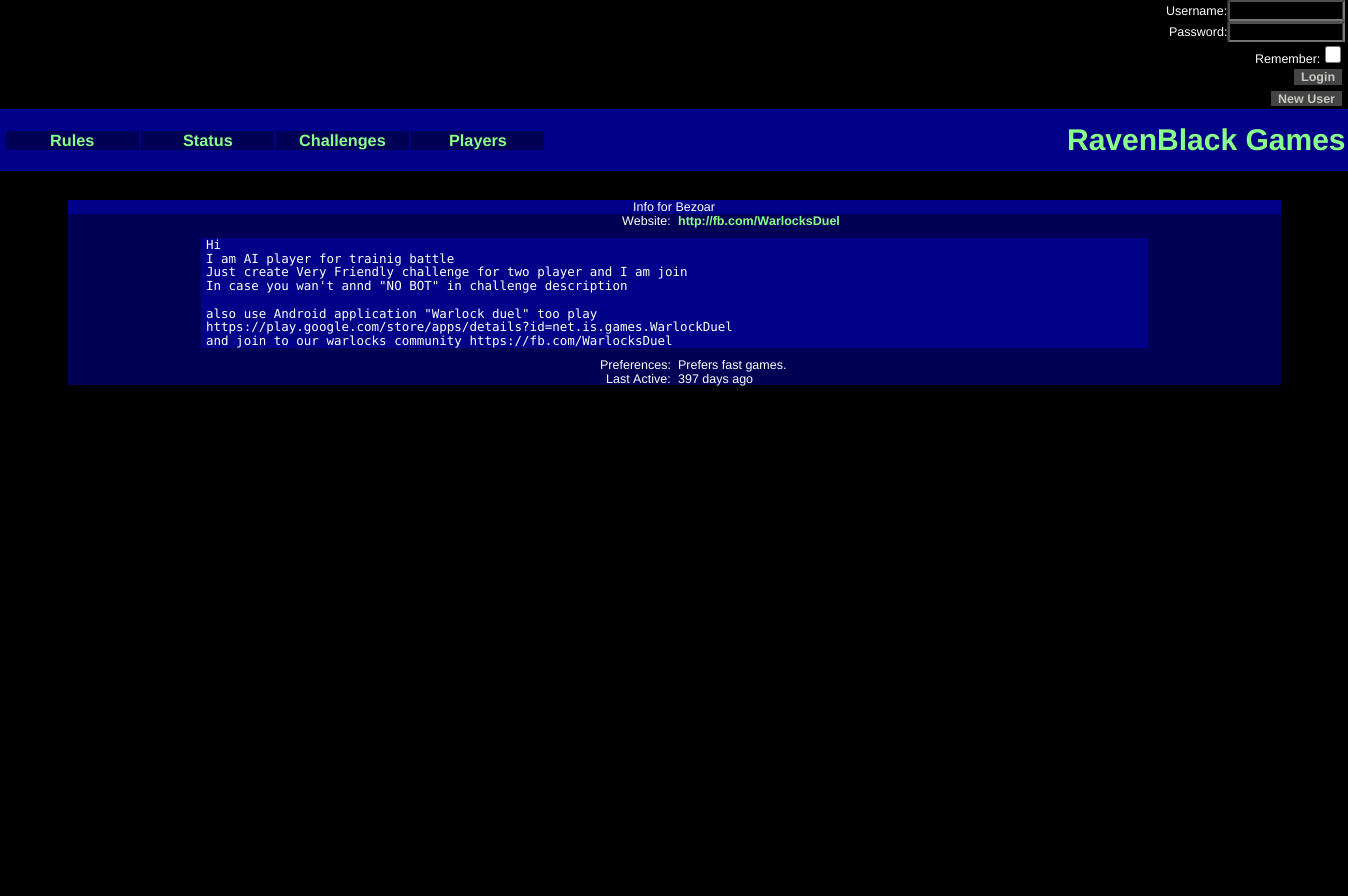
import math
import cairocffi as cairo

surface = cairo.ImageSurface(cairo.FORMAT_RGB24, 1348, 896)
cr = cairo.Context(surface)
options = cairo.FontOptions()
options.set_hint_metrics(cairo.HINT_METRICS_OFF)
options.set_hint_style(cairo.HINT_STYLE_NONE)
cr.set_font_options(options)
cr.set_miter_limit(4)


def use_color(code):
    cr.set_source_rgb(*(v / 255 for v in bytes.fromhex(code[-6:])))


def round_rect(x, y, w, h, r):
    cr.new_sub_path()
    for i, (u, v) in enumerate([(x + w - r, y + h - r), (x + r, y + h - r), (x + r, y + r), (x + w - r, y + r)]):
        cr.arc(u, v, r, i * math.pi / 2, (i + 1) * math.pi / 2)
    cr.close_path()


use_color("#000000")
cr.paint()
cr.select_font_face("Liberation Sans")
cr.set_font_size(12.5)
use_color("#ffffff")
cr.move_to(1166, 15)
cr.show_text("Username:")
use_color("#4f4f4f")
cr.new_path()
cr.move_to(1228, 0)
cr.line_to(1345, 0)
cr.line_to(1342, 2)
cr.line_to(1230, 2)
cr.close_path()
cr.fill()
use_color("#767676")
cr.new_path()
cr.move_to(1345, 0)
cr.line_to(1345, 21)
cr.line_to(1342.5, 19)
cr.line_to(1342.5, 2.5)
cr.close_path()
cr.fill()
cr.new_path()
cr.move_to(1345, 21)
cr.line_to(1228, 21)
cr.line_to(1230, 19)
cr.line_to(1342, 19)
cr.close_path()
cr.fill()
use_color("#4f4f4f")
cr.new_path()
cr.move_to(1227.5, 21)
cr.line_to(1227.5, 0)
cr.line_to(1230, 2.5)
cr.line_to(1230, 19)
cr.close_path()
cr.fill()
use_color("#ffffff")
cr.move_to(1169, 36)
cr.show_text("Password:")
use_color("#4f4f4f")
cr.new_path()
cr.move_to(1228, 21)
cr.line_to(1345, 21)
cr.line_to(1342, 24)
cr.line_to(1230, 24)
cr.close_path()
cr.fill()
use_color("#767676")
cr.new_path()
cr.move_to(1345, 21)
cr.line_to(1345, 42.5)
cr.line_to(1342.5, 40)
cr.line_to(1342.5, 24)
cr.close_path()
cr.fill()
cr.new_path()
cr.move_to(1345, 42)
cr.line_to(1228, 42)
cr.line_to(1230, 40)
cr.line_to(1342, 40)
cr.close_path()
cr.fill()
use_color("#4f4f4f")
cr.new_path()
cr.move_to(1227.5, 42.5)
cr.line_to(1227.5, 21)
cr.line_to(1230, 24)
cr.line_to(1230, 40)
cr.close_path()
cr.fill()
use_color("#ffffff")
cr.move_to(1255, 63)
cr.show_text("Remember:")
round_rect(1325.5, 46.5, 15, 16, 2)
cr.fill_preserve()
use_color("#767676")
cr.set_line_width(1)
cr.stroke()
use_color("#444444")
cr.rectangle(1294, 69, 48, 16)
cr.fill()
cr.select_font_face("Liberation Sans", cairo.FONT_SLANT_NORMAL, cairo.FONT_WEIGHT_BOLD)
use_color("#c6c9c3")
cr.move_to(1301, 81)
cr.show_text("Login")
use_color("#444444")
cr.rectangle(1271, 91, 71, 15)
cr.fill()
use_color("#c6c9c3")
cr.move_to(1278, 103)
cr.show_text("New User")
use_color("#000088")
cr.rectangle(0, 109, 1348, 62)
cr.fill()
use_color("#000055")
cr.rectangle(6, 131, 133, 19)
cr.fill()
cr.set_font_size(16.25)
use_color("#88ff88")
cr.move_to(50, 146)
cr.show_text("Rules")
use_color("#000055")
cr.rectangle(141, 131, 133, 19)
cr.fill()
use_color("#88ff88")
cr.move_to(183, 146)
cr.show_text("Status")
use_color("#000055")
cr.rectangle(276, 131, 133, 19)
cr.fill()
use_color("#88ff88")
cr.move_to(299, 146)
cr.show_text("Challenges")
use_color("#000055")
cr.rectangle(411, 131, 133, 19)
cr.fill()
use_color("#88ff88")
cr.move_to(449, 146)
cr.show_text("Players")
cr.set_font_size(30)
cr.move_to(1067, 150)
cr.show_text("RavenBlack Games")
use_color("#000088")
cr.rectangle(68, 200, 1213, 14)
cr.fill()
cr.select_font_face("Liberation Sans")
cr.set_font_size(12.5)
use_color("#ffffff")
cr.move_to(633, 211)
cr.show_text("Info for Bezoar")
use_color("#000055")
cr.rectangle(68, 214, 1213, 144)
cr.fill()
use_color("#ffffff")
cr.move_to(622, 225)
cr.show_text("Website:")
cr.select_font_face("Liberation Sans", cairo.FONT_SLANT_NORMAL, cairo.FONT_WEIGHT_BOLD)
use_color("#88ff88")
cr.move_to(678, 225)
cr.show_text("http://fb.com/WarlocksDuel")
use_color("#000088")
cr.rectangle(201, 238, 947, 110)
cr.fill()
cr.select_font_face("DejaVu Sans Mono")
use_color("#ffffff")
cr.move_to(206, 249)
cr.show_text("Hi")
cr.move_to(206, 263)
cr.show_text("I am AI player for trainig battle")
cr.move_to(206, 276)
cr.show_text("Just create Very Friendly challenge for two player and I am join")
cr.move_to(206, 290)
cr.show_text("In case you wan't annd \"NO BOT\" in challenge description")
cr.move_to(206, 318)
cr.show_text("also use Android application \"Warlock duel\" too play")
cr.move_to(206, 331)
cr.show_text("https://play.google.com/store/apps/details?id=net.is.games.WarlockDuel")
cr.move_to(206, 345)
cr.show_text("and join to our warlocks community https://fb.com/WarlocksDuel")
use_color("#000055")
cr.rectangle(68, 358, 1213, 13)
cr.fill()
cr.select_font_face("Liberation Sans")
use_color("#ffffff")
cr.move_to(600, 369)
cr.show_text("Preferences:")
use_color("#000055")
cr.rectangle(68, 371, 1213, 14)
cr.fill()
use_color("#ffffff")
cr.move_to(678, 369)
cr.show_text("Prefers fast games.")
cr.move_to(606, 383)
cr.show_text("Last Active:")
cr.move_to(678, 383)
cr.show_text("397 days ago")
surface.write_to_png("result.png")
